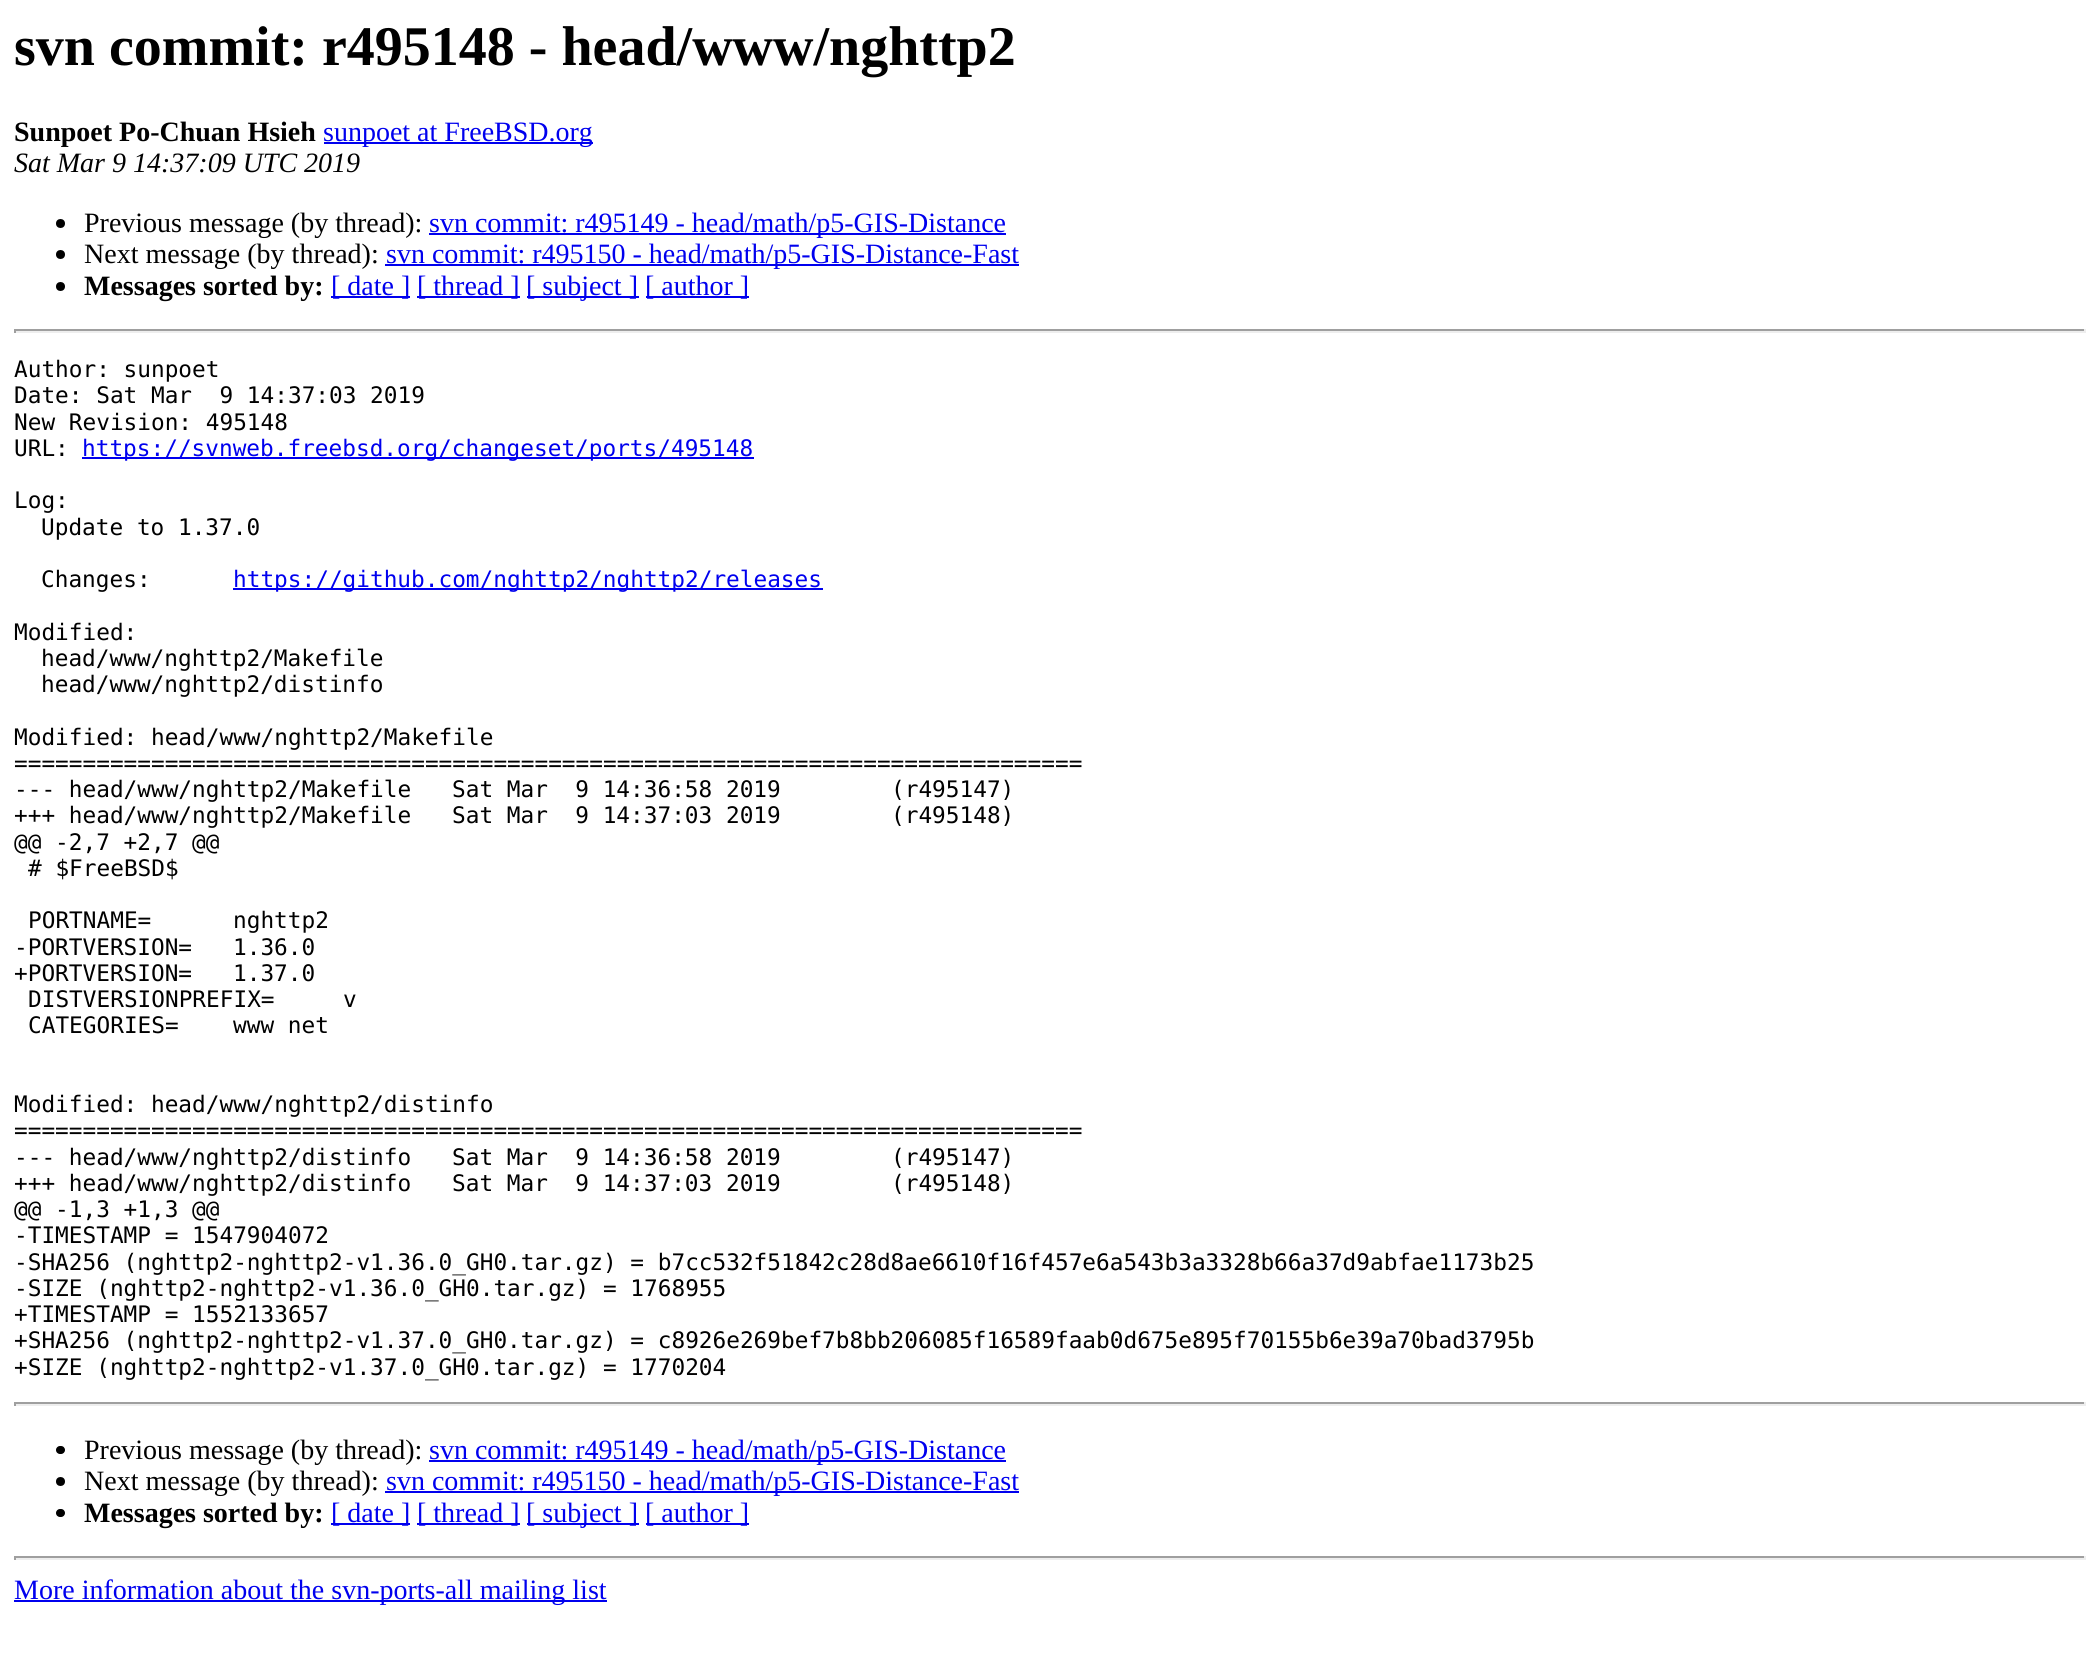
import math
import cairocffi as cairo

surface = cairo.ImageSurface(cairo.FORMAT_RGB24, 2100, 1677)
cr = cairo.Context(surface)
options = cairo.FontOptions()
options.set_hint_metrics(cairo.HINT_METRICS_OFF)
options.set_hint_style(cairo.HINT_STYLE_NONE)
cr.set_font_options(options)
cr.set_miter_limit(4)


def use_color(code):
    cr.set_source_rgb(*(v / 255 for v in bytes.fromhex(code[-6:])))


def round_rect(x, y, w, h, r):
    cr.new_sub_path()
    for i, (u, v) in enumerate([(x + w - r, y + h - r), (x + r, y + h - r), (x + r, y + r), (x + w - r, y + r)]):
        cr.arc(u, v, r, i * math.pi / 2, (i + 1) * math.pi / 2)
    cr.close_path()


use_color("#ffffff")
cr.paint()
cr.select_font_face("Liberation Serif", cairo.FONT_SLANT_NORMAL, cairo.FONT_WEIGHT_BOLD)
cr.set_font_size(56)
use_color("#000000")
cr.move_to(14, 65)
cr.show_text("svn commit: r495148 - head/www/nghttp2")
cr.set_font_size(28)
cr.move_to(14, 141)
cr.show_text("Sunpoet Po-Chuan Hsieh")
use_color("#0000ee")
cr.rectangle(324, 142, 269, 2)
cr.fill()
cr.select_font_face("Liberation Serif")
cr.move_to(323, 141)
cr.show_text("sunpoet at FreeBSD.org")
cr.select_font_face("Liberation Serif", cairo.FONT_SLANT_ITALIC)
use_color("#000000")
cr.move_to(14, 172)
cr.show_text("Sat Mar 9 14:37:09 UTC 2019")
cr.new_path()
cr.arc(60.5, 223.5, 4.5, 0, 2 * math.pi)
cr.fill()
cr.select_font_face("Liberation Serif")
cr.move_to(84, 232)
cr.show_text("Previous message (by thread):")
use_color("#0000ee")
cr.rectangle(429, 233, 577, 2)
cr.fill()
cr.move_to(429, 232)
cr.show_text("svn commit: r495149 - head/math/p5-GIS-Distance")
use_color("#000000")
cr.new_path()
cr.arc(60.5, 254.5, 4.5, 0, 2 * math.pi)
cr.fill()
cr.move_to(84, 263)
cr.show_text("Next message (by thread):")
use_color("#0000ee")
cr.rectangle(385, 264, 634, 2)
cr.fill()
cr.move_to(386, 263)
cr.show_text("svn commit: r495150 - head/math/p5-GIS-Distance-Fast")
use_color("#000000")
cr.new_path()
cr.arc(60.5, 286.5, 4.5, 0, 2 * math.pi)
cr.fill()
cr.select_font_face("Liberation Serif", cairo.FONT_SLANT_NORMAL, cairo.FONT_WEIGHT_BOLD)
cr.move_to(84, 295)
cr.show_text("Messages sorted by:")
use_color("#0000ee")
cr.rectangle(331, 296, 79, 2)
cr.fill()
cr.select_font_face("Liberation Serif")
cr.move_to(331, 295)
cr.show_text("[ date ]")
cr.rectangle(417, 296, 103, 2)
cr.fill()
cr.move_to(417, 295)
cr.show_text("[ thread ]")
cr.rectangle(527, 296, 112, 2)
cr.fill()
cr.move_to(526, 295)
cr.show_text("[ subject ]")
cr.rectangle(646, 296, 103, 2)
cr.fill()
cr.move_to(645, 295)
cr.show_text("[ author ]")
use_color("#9f9f9f")
cr.rectangle(14, 329, 2072, 2)
cr.fill()
use_color("#eeeeee")
cr.rectangle(2084, 329, 2, 4)
cr.fill()
cr.rectangle(14, 331, 2072, 2)
cr.fill()
use_color("#9f9f9f")
cr.rectangle(14, 329, 2, 4)
cr.fill()
cr.select_font_face("DejaVu Sans Mono")
cr.set_font_size(22.75)
use_color("#000000")
cr.move_to(14, 377)
cr.show_text("Author: sunpoet")
cr.move_to(14, 403)
cr.show_text("Date: Sat Mar  9 14:37:03 2019")
cr.move_to(14, 430)
cr.show_text("New Revision: 495148")
cr.move_to(14, 456)
cr.show_text("URL:")
use_color("#0000ee")
cr.rectangle(82, 457, 672, 2)
cr.fill()
cr.move_to(82, 456)
cr.show_text("https://svnweb.freebsd.org/changeset/ports/495148")
use_color("#000000")
cr.move_to(14, 508)
cr.show_text("Log:")
cr.move_to(41, 535)
cr.show_text("Update to 1.37.0")
cr.move_to(41, 587)
cr.show_text("Changes:")
use_color("#0000ee")
cr.rectangle(233, 588, 590, 2)
cr.fill()
cr.move_to(233, 587)
cr.show_text("https://github.com/nghttp2/nghttp2/releases")
use_color("#000000")
cr.move_to(14, 640)
cr.show_text("Modified:")
cr.move_to(41, 666)
cr.show_text("head/www/nghttp2/Makefile")
cr.move_to(41, 692)
cr.show_text("head/www/nghttp2/distinfo")
cr.move_to(14, 745)
cr.show_text("Modified: head/www/nghttp2/Makefile")
cr.move_to(14, 771)
cr.show_text("==============================================================================")
cr.move_to(14, 797)
cr.show_text("--- head/www/nghttp2/Makefile")
cr.move_to(452, 797)
cr.show_text("Sat Mar  9 14:36:58 2019")
cr.move_to(891, 797)
cr.show_text("(r495147)")
cr.move_to(14, 823)
cr.show_text("+++ head/www/nghttp2/Makefile")
cr.move_to(452, 823)
cr.show_text("Sat Mar  9 14:37:03 2019")
cr.move_to(891, 823)
cr.show_text("(r495148)")
cr.move_to(14, 850)
cr.show_text("@@ -2,7 +2,7 @@")
cr.move_to(28, 876)
cr.show_text("# $FreeBSD$")
cr.move_to(28, 928)
cr.show_text("PORTNAME=")
cr.move_to(233, 928)
cr.show_text("nghttp2")
cr.move_to(14, 955)
cr.show_text("-PORTVERSION=")
cr.move_to(233, 955)
cr.show_text("1.36.0")
cr.move_to(14, 981)
cr.show_text("+PORTVERSION=")
cr.move_to(233, 981)
cr.show_text("1.37.0")
cr.move_to(28, 1007)
cr.show_text("DISTVERSIONPREFIX=")
cr.move_to(343, 1007)
cr.show_text("v")
cr.move_to(28, 1033)
cr.show_text("CATEGORIES=")
cr.move_to(233, 1033)
cr.show_text("www net")
cr.move_to(14, 1112)
cr.show_text("Modified: head/www/nghttp2/distinfo")
cr.move_to(14, 1138)
cr.show_text("==============================================================================")
cr.move_to(14, 1165)
cr.show_text("--- head/www/nghttp2/distinfo")
cr.move_to(452, 1165)
cr.show_text("Sat Mar  9 14:36:58 2019")
cr.move_to(891, 1165)
cr.show_text("(r495147)")
cr.move_to(14, 1191)
cr.show_text("+++ head/www/nghttp2/distinfo")
cr.move_to(452, 1191)
cr.show_text("Sat Mar  9 14:37:03 2019")
cr.move_to(891, 1191)
cr.show_text("(r495148)")
cr.move_to(14, 1217)
cr.show_text("@@ -1,3 +1,3 @@")
cr.move_to(14, 1243)
cr.show_text("-TIMESTAMP = 1547904072")
cr.move_to(14, 1270)
cr.show_text("-SHA256 (nghttp2-nghttp2-v1.36.0_GH0.tar.gz) = b7cc532f51842c28d8ae6610f16f457e6a543b3a3328b66a37d9abfae1173b25")
cr.move_to(14, 1296)
cr.show_text("-SIZE (nghttp2-nghttp2-v1.36.0_GH0.tar.gz) = 1768955")
cr.move_to(14, 1322)
cr.show_text("+TIMESTAMP = 1552133657")
cr.move_to(14, 1348)
cr.show_text("+SHA256 (nghttp2-nghttp2-v1.37.0_GH0.tar.gz) = c8926e269bef7b8bb206085f16589faab0d675e895f70155b6e39a70bad3795b")
cr.move_to(14, 1375)
cr.show_text("+SIZE (nghttp2-nghttp2-v1.37.0_GH0.tar.gz) = 1770204")
use_color("#9f9f9f")
cr.rectangle(14, 1402, 2072, 2)
cr.fill()
use_color("#eeeeee")
cr.rectangle(2084, 1402, 2, 4)
cr.fill()
cr.rectangle(14, 1404, 2072, 2)
cr.fill()
use_color("#9f9f9f")
cr.rectangle(14, 1402, 2, 4)
cr.fill()
use_color("#000000")
round_rect(56, 1446, 9, 8, 4)
cr.fill()
cr.select_font_face("Liberation Serif")
cr.set_font_size(28)
cr.move_to(84, 1459)
cr.show_text("Previous message (by thread):")
use_color("#0000ee")
cr.rectangle(429, 1460, 577, 2)
cr.fill()
cr.move_to(429, 1459)
cr.show_text("svn commit: r495149 - head/math/p5-GIS-Distance")
use_color("#000000")
cr.new_path()
cr.arc(60.5, 1481.5, 4.5, 0, 2 * math.pi)
cr.fill()
cr.move_to(84, 1490)
cr.show_text("Next message (by thread):")
use_color("#0000ee")
cr.rectangle(385, 1491, 634, 2)
cr.fill()
cr.move_to(386, 1490)
cr.show_text("svn commit: r495150 - head/math/p5-GIS-Distance-Fast")
use_color("#000000")
round_rect(56, 1509, 9, 8, 4)
cr.fill()
cr.select_font_face("Liberation Serif", cairo.FONT_SLANT_NORMAL, cairo.FONT_WEIGHT_BOLD)
cr.move_to(84, 1522)
cr.show_text("Messages sorted by:")
use_color("#0000ee")
cr.rectangle(331, 1523, 79, 2)
cr.fill()
cr.select_font_face("Liberation Serif")
cr.move_to(331, 1522)
cr.show_text("[ date ]")
cr.rectangle(417, 1523, 103, 2)
cr.fill()
cr.move_to(417, 1522)
cr.show_text("[ thread ]")
cr.rectangle(527, 1523, 112, 2)
cr.fill()
cr.move_to(526, 1522)
cr.show_text("[ subject ]")
cr.rectangle(646, 1523, 103, 2)
cr.fill()
cr.move_to(645, 1522)
cr.show_text("[ author ]")
use_color("#9f9f9f")
cr.rectangle(14, 1556, 2072, 2)
cr.fill()
use_color("#eeeeee")
cr.rectangle(2084, 1556, 2, 4)
cr.fill()
cr.rectangle(14, 1558, 2072, 2)
cr.fill()
use_color("#9f9f9f")
cr.rectangle(14, 1556, 2, 4)
cr.fill()
use_color("#0000ee")
cr.rectangle(14, 1600, 593, 2)
cr.fill()
cr.move_to(14, 1599)
cr.show_text("More information about the svn-ports-all mailing list")
surface.write_to_png("result.png")
